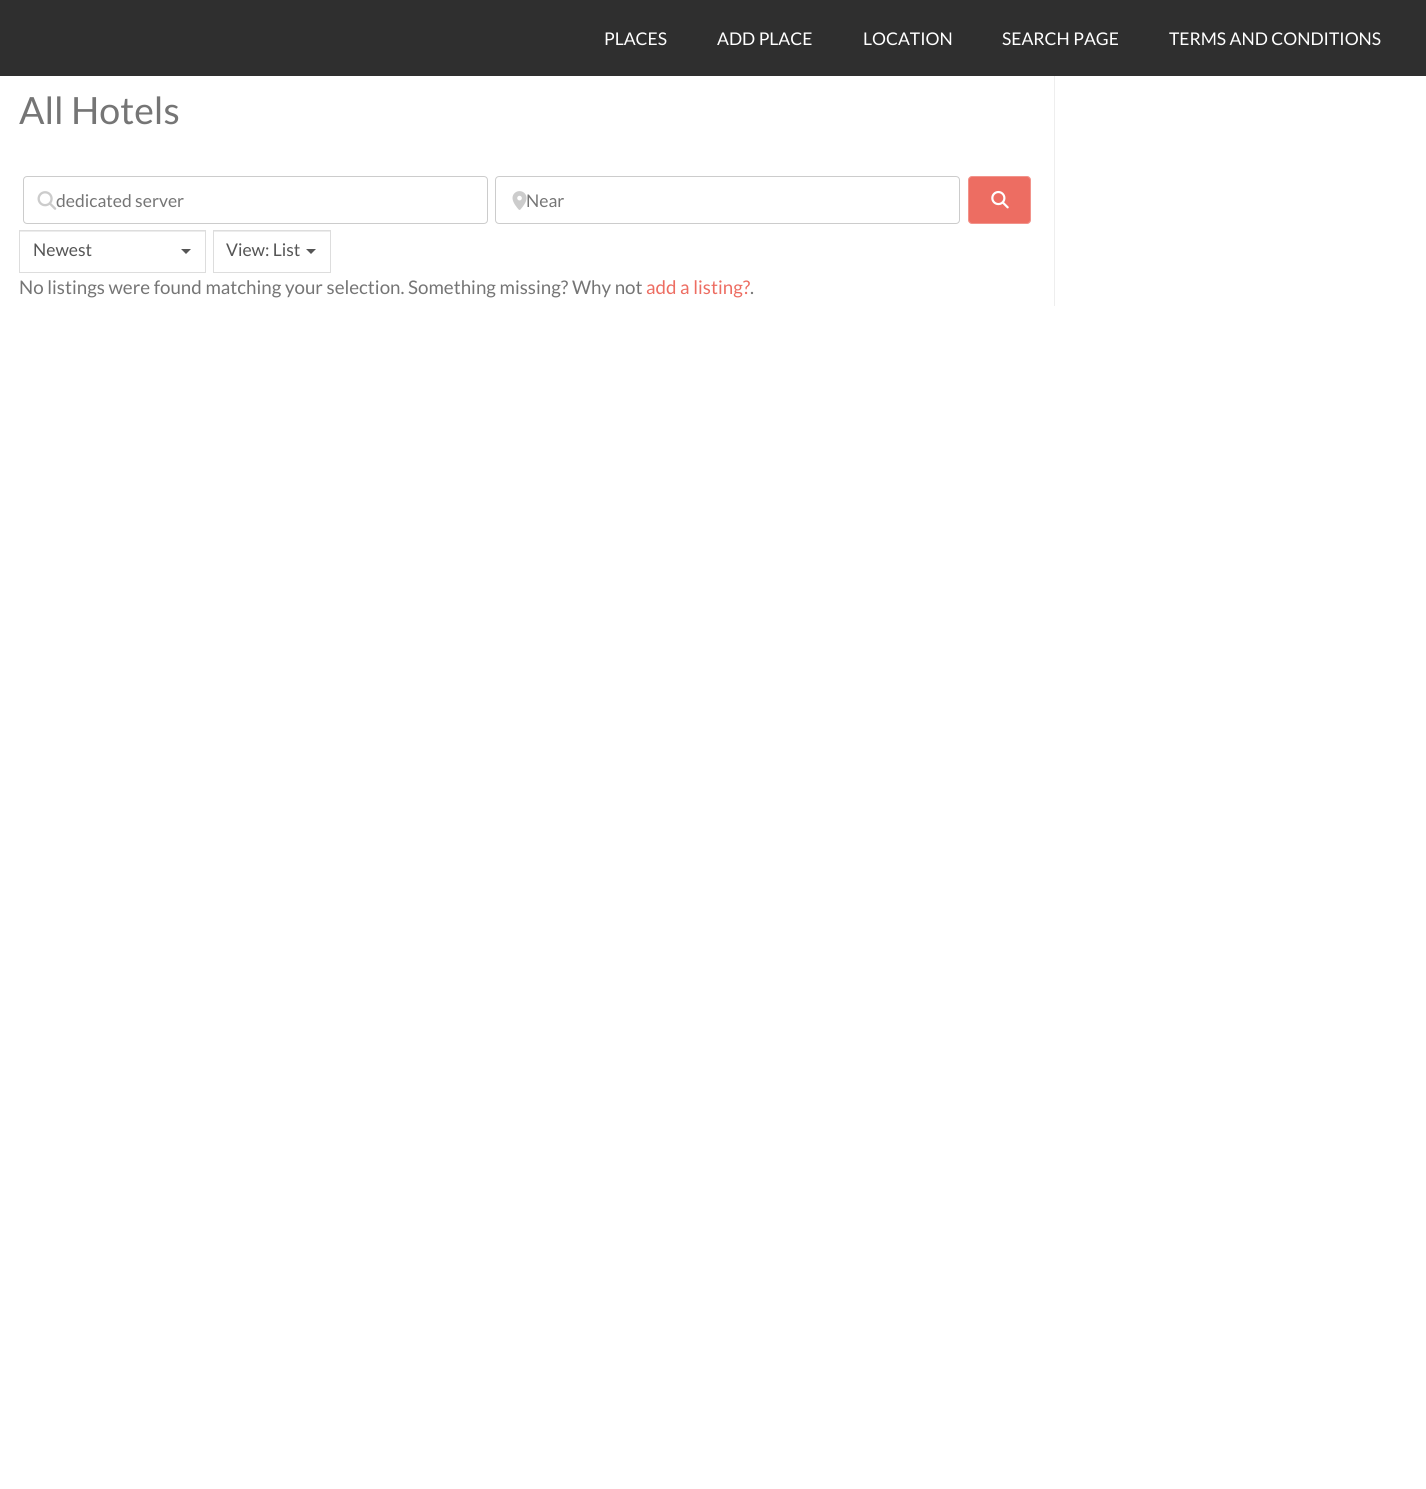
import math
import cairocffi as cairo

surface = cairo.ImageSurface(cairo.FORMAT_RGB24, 1426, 1489)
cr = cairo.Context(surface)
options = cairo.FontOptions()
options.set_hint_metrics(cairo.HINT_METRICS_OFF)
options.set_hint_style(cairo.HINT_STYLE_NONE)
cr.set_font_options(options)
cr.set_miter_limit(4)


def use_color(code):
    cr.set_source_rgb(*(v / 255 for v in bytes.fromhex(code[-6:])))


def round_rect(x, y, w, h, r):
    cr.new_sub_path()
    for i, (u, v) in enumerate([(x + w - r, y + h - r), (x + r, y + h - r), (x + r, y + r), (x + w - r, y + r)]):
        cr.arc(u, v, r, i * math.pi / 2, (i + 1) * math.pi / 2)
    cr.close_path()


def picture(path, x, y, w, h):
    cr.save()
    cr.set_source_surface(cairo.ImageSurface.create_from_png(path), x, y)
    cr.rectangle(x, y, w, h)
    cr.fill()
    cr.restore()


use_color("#ffffff")
cr.paint()
use_color("#2f2f2f")
cr.rectangle(0, 0, 1426, 76)
cr.fill()
cr.select_font_face("Lato")
cr.set_font_size(17.5)
use_color("#ffffff")
cr.move_to(604, 45)
cr.show_text("PLACES")
cr.move_to(717, 45)
cr.show_text("ADD PLACE")
cr.move_to(863, 45)
cr.show_text("LOCATION")
cr.move_to(1002, 45)
cr.show_text("SEARCH PAGE")
cr.move_to(1169, 45)
cr.show_text("TERMS AND CONDITIONS")
use_color("#eeeeee")
cr.rectangle(1054, 76, 1, 230)
cr.fill()
cr.set_font_size(37.5)
use_color("#757575")
cr.move_to(19, 124)
cr.show_text("All Hotels")
round_rect(23.5, 176.5, 464, 47, 3.5)
use_color("#cccccc")
cr.set_line_width(1)
cr.stroke()
cr.set_font_size(17.5)
use_color("#757575")
cr.move_to(56, 207)
cr.show_text("dedicated server")
picture("img1.png", 37, 191, 20, 19)
round_rect(495.5, 176.5, 464, 47, 3.5)
use_color("#cccccc")
cr.stroke()
picture("img2.png", 512, 191, 15, 19)
use_color("#757575")
cr.move_to(526, 207)
cr.show_text("Near")
use_color("#ed6d62")
round_rect(968.5, 176.5, 62, 47, 3.5)
cr.fill_preserve()
use_color("#f2938b")
cr.stroke()
picture("img3.png", 991, 190, 18, 19)
use_color("#ececec")
cr.rectangle(20, 231, 185, 1)
cr.fill()
cr.rectangle(19.5, 230.5, 186, 42)
use_color("#dddddd")
cr.stroke()
use_color("#555555")
cr.move_to(33, 256)
cr.show_text("Newest")
cr.new_path()
cr.move_to(181, 249)
cr.line_to(191, 249)
cr.line_to(186, 254)
cr.close_path()
cr.fill()
use_color("#ececec")
cr.rectangle(214, 231, 116, 1)
cr.fill()
cr.rectangle(213.5, 230.5, 117, 42)
use_color("#dddddd")
cr.stroke()
use_color("#555555")
cr.move_to(226, 256)
cr.show_text("View: List")
cr.new_path()
cr.move_to(306, 249)
cr.line_to(316, 249)
cr.line_to(311, 254)
cr.close_path()
cr.fill()
cr.set_font_size(18.75)
use_color("#757575")
cr.move_to(19, 294)
cr.show_text("No listings were found matching your selection. Something missing? Why not")
use_color("#ed6d62")
cr.move_to(646, 294)
cr.show_text("add a listing?")
use_color("#757575")
cr.move_to(750, 294)
cr.show_text(".")
surface.write_to_png("result.png")
